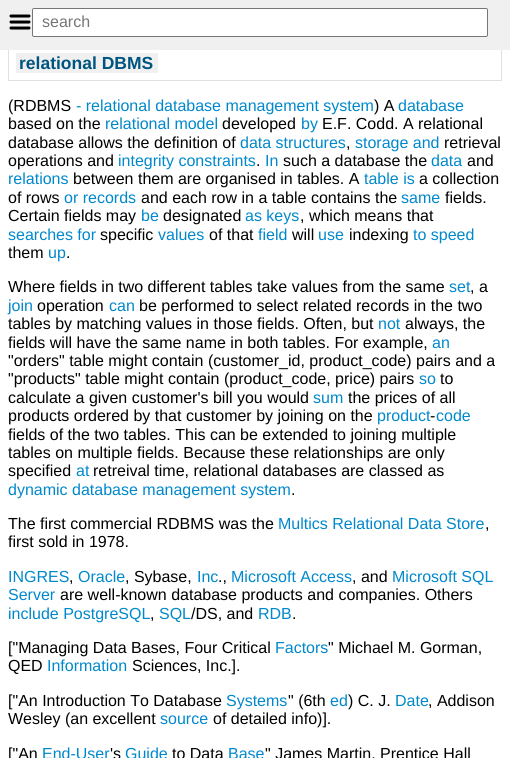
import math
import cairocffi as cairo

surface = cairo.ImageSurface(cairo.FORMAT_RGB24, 510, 758)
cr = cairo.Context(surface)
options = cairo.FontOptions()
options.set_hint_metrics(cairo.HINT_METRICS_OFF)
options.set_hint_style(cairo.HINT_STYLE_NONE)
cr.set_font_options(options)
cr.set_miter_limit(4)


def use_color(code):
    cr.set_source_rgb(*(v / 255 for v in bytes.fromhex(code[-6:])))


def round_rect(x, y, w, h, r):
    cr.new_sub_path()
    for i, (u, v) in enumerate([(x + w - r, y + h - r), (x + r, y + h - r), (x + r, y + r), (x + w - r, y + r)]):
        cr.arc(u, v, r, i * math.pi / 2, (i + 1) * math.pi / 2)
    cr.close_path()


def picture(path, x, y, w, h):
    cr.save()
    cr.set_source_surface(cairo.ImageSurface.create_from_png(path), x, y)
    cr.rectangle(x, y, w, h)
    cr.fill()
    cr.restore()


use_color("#ffffff")
cr.paint()
cr.rectangle(8.5, 0.5, 493, 80)
use_color("#e0e0e0")
cr.set_line_width(1)
cr.stroke()
use_color("#f0f0f0")
cr.rectangle(0, 0, 510, 50)
cr.fill()
picture("img1.png", 9, 14, 22, 16)
use_color("#ffffff")
round_rect(32.5, 8.5, 455, 28, 1.5)
cr.fill_preserve()
use_color("#767676")
cr.stroke()
cr.select_font_face("Liberation Sans")
cr.set_font_size(16)
use_color("#757575")
cr.move_to(42, 27)
cr.show_text("search")
use_color("#f0f0f0")
cr.rectangle(16, 53, 142, 20)
cr.fill()
cr.select_font_face("Liberation Sans", cairo.FONT_SLANT_NORMAL, cairo.FONT_WEIGHT_BOLD)
cr.set_font_size(17.5)
use_color("#005580")
cr.move_to(19, 69)
cr.show_text("relational DBMS")
cr.select_font_face("Liberation Sans")
cr.set_font_size(16)
use_color("#000000")
cr.move_to(8, 111)
cr.show_text("(RDBMS")
use_color("#0088cc")
cr.move_to(76, 111)
cr.show_text("- relational database management system")
use_color("#000000")
cr.move_to(374, 111)
cr.show_text(") A")
use_color("#0088cc")
cr.move_to(398, 111)
cr.show_text("database")
use_color("#000000")
cr.move_to(8, 129)
cr.show_text("based on the")
use_color("#0088cc")
cr.move_to(105, 129)
cr.show_text("relational model")
use_color("#000000")
cr.move_to(222, 129)
cr.show_text("developed")
use_color("#0088cc")
cr.move_to(301, 129)
cr.show_text("by")
use_color("#000000")
cr.move_to(322, 129)
cr.show_text("E.F. Codd. A relational")
cr.move_to(8, 148)
cr.show_text("database allows the definition of")
use_color("#0088cc")
cr.move_to(240, 148)
cr.show_text("data structures")
use_color("#000000")
cr.move_to(346, 148)
cr.show_text(",")
use_color("#0088cc")
cr.move_to(355, 148)
cr.show_text("storage and")
use_color("#000000")
cr.move_to(444, 148)
cr.show_text("retrieval")
cr.move_to(8, 166)
cr.show_text("operations and")
use_color("#0088cc")
cr.move_to(118, 166)
cr.show_text("integrity constraints")
use_color("#000000")
cr.move_to(256, 166)
cr.show_text(".")
use_color("#0088cc")
cr.move_to(265, 166)
cr.show_text("In")
use_color("#000000")
cr.move_to(283, 166)
cr.show_text("such a database the")
use_color("#0088cc")
cr.move_to(431, 166)
cr.show_text("data")
use_color("#000000")
cr.move_to(467, 166)
cr.show_text("and")
use_color("#0088cc")
cr.move_to(8, 184)
cr.show_text("relations")
use_color("#000000")
cr.move_to(73, 184)
cr.show_text("between them are organised in tables. A")
use_color("#0088cc")
cr.move_to(364, 184)
cr.show_text("table is")
use_color("#000000")
cr.move_to(419, 184)
cr.show_text("a collection")
cr.move_to(8, 203)
cr.show_text("of rows")
use_color("#0088cc")
cr.move_to(64, 203)
cr.show_text("or records")
use_color("#000000")
cr.move_to(141, 203)
cr.show_text("and each row in a table contains the")
use_color("#0088cc")
cr.move_to(401, 203)
cr.show_text("same")
use_color("#000000")
cr.move_to(445, 203)
cr.show_text("fields.")
cr.move_to(8, 221)
cr.show_text("Certain fields may")
use_color("#0088cc")
cr.move_to(141, 221)
cr.show_text("be")
use_color("#000000")
cr.move_to(163, 221)
cr.show_text("designated")
use_color("#0088cc")
cr.move_to(245, 221)
cr.show_text("as keys")
use_color("#000000")
cr.move_to(300, 221)
cr.show_text(", which means that")
use_color("#0088cc")
cr.move_to(8, 240)
cr.show_text("searches for")
use_color("#000000")
cr.move_to(100, 240)
cr.show_text("specific")
use_color("#0088cc")
cr.move_to(158, 240)
cr.show_text("values")
use_color("#000000")
cr.move_to(209, 240)
cr.show_text("of that")
use_color("#0088cc")
cr.move_to(258, 240)
cr.show_text("field")
use_color("#000000")
cr.move_to(292, 240)
cr.show_text("will")
use_color("#0088cc")
cr.move_to(318, 240)
cr.show_text("use")
use_color("#000000")
cr.move_to(349, 240)
cr.show_text("indexing")
use_color("#0088cc")
cr.move_to(413, 240)
cr.show_text("to speed")
use_color("#000000")
cr.move_to(8, 258)
cr.show_text("them")
use_color("#0088cc")
cr.move_to(48, 258)
cr.show_text("up")
use_color("#000000")
cr.move_to(66, 258)
cr.show_text(".")
cr.move_to(8, 292)
cr.show_text("Where fields in two different tables take values from the same")
use_color("#0088cc")
cr.move_to(449, 292)
cr.show_text("set")
use_color("#000000")
cr.move_to(470, 292)
cr.show_text(", a")
use_color("#0088cc")
cr.move_to(8, 311)
cr.show_text("join")
use_color("#000000")
cr.move_to(37, 311)
cr.show_text("operation")
use_color("#0088cc")
cr.move_to(109, 311)
cr.show_text("can")
use_color("#000000")
cr.move_to(139, 311)
cr.show_text("be performed to select related records in the two")
cr.move_to(8, 329)
cr.show_text("tables by matching values in those fields. Often, but")
use_color("#0088cc")
cr.move_to(378, 329)
cr.show_text("not")
use_color("#000000")
cr.move_to(405, 329)
cr.show_text("always, the")
cr.move_to(8, 348)
cr.show_text("fields will have the same name in both tables. For example,")
use_color("#0088cc")
cr.move_to(432, 348)
cr.show_text("an")
use_color("#000000")
cr.move_to(8, 366)
cr.show_text("\"orders\" table might contain (customer_id, product_code) pairs and a")
cr.move_to(8, 384)
cr.show_text("\"products\" table might contain (product_code, price) pairs")
use_color("#0088cc")
cr.move_to(419, 384)
cr.show_text("so")
use_color("#000000")
cr.move_to(440, 384)
cr.show_text("to")
cr.move_to(8, 403)
cr.show_text("calculate a given customer's bill you would")
use_color("#0088cc")
cr.move_to(313, 403)
cr.show_text("sum")
use_color("#000000")
cr.move_to(348, 403)
cr.show_text("the prices of all")
cr.move_to(8, 421)
cr.show_text("products ordered by that customer by joining on the")
use_color("#0088cc")
cr.move_to(377, 421)
cr.show_text("product")
use_color("#000000")
cr.move_to(430, 421)
cr.show_text("-")
use_color("#0088cc")
cr.move_to(436, 421)
cr.show_text("code")
use_color("#000000")
cr.move_to(8, 440)
cr.show_text("fields of the two tables. This can be extended to joining multiple")
cr.move_to(8, 458)
cr.show_text("tables on multiple fields. Because these relationships are only")
cr.move_to(8, 476)
cr.show_text("specified")
use_color("#0088cc")
cr.move_to(76, 476)
cr.show_text("at")
use_color("#000000")
cr.move_to(93, 476)
cr.show_text("retreival time, relational databases are classed as")
use_color("#0088cc")
cr.move_to(8, 495)
cr.show_text("dynamic database management system")
use_color("#000000")
cr.move_to(291, 495)
cr.show_text(".")
cr.move_to(8, 529)
cr.show_text("The first commercial RDBMS was the")
use_color("#0088cc")
cr.move_to(278, 529)
cr.show_text("Multics Relational Data Store")
use_color("#000000")
cr.move_to(485, 529)
cr.show_text(",")
cr.move_to(8, 547)
cr.show_text("first sold in 1978.")
use_color("#0088cc")
cr.move_to(8, 582)
cr.show_text("INGRES")
use_color("#000000")
cr.move_to(69, 582)
cr.show_text(",")
use_color("#0088cc")
cr.move_to(78, 582)
cr.show_text("Oracle")
use_color("#000000")
cr.move_to(125, 582)
cr.show_text(", Sybase,")
use_color("#0088cc")
cr.move_to(197, 582)
cr.show_text("Inc")
use_color("#000000")
cr.move_to(218, 582)
cr.show_text(".,")
use_color("#0088cc")
cr.move_to(231, 582)
cr.show_text("Microsoft Access")
use_color("#000000")
cr.move_to(352, 582)
cr.show_text(", and")
use_color("#0088cc")
cr.move_to(392, 582)
cr.show_text("Microsoft SQL")
cr.move_to(8, 600)
cr.show_text("Server")
use_color("#000000")
cr.move_to(60, 600)
cr.show_text("are well-known database products and companies. Others")
use_color("#0088cc")
cr.move_to(8, 619)
cr.show_text("include PostgreSQL")
cr.move_to(159, 619)
cr.show_text("SQL")
use_color("#000000")
cr.move_to(191, 619)
cr.show_text("/DS, and")
use_color("#0088cc")
cr.move_to(258, 619)
cr.show_text("RDB")
use_color("#000000")
cr.move_to(150, 619)
cr.show_text(",")
cr.move_to(292, 619)
cr.show_text(".")
cr.move_to(8, 653)
cr.show_text("[\"Managing Data Bases, Four Critical")
use_color("#0088cc")
cr.move_to(275, 653)
cr.show_text("Factors")
use_color("#000000")
cr.move_to(328, 653)
cr.show_text("\" Michael M. Gorman,")
cr.move_to(8, 671)
cr.show_text("QED")
use_color("#0088cc")
cr.move_to(47, 671)
cr.show_text("Information")
use_color("#000000")
cr.move_to(132, 671)
cr.show_text("Sciences, Inc.].")
cr.move_to(8, 706)
cr.show_text("[\"An Introduction To Database")
use_color("#0088cc")
cr.move_to(226, 706)
cr.show_text("Systems")
use_color("#000000")
cr.move_to(288, 706)
cr.show_text("\" (6th")
use_color("#0088cc")
cr.move_to(330, 706)
cr.show_text("ed")
use_color("#000000")
cr.move_to(348, 706)
cr.show_text(") C. J.")
use_color("#0088cc")
cr.move_to(395, 706)
cr.show_text("Date")
use_color("#000000")
cr.move_to(428, 706)
cr.show_text(", Addison")
cr.move_to(8, 724)
cr.show_text("Wesley (an excellent")
use_color("#0088cc")
cr.move_to(160, 724)
cr.show_text("source")
use_color("#000000")
cr.move_to(213, 724)
cr.show_text("of detailed info)].")
cr.move_to(8, 759)
cr.show_text("[\"An")
use_color("#0088cc")
cr.move_to(42, 759)
cr.show_text("End-User")
use_color("#000000")
cr.move_to(110, 759)
cr.show_text("'s")
use_color("#0088cc")
cr.move_to(125, 759)
cr.show_text("Guide")
use_color("#000000")
cr.move_to(172, 759)
cr.show_text("to Data")
use_color("#0088cc")
cr.move_to(228, 759)
cr.show_text("Base")
use_color("#000000")
cr.move_to(265, 759)
cr.show_text("\" James Martin, Prentice Hall")
surface.write_to_png("result.png")
